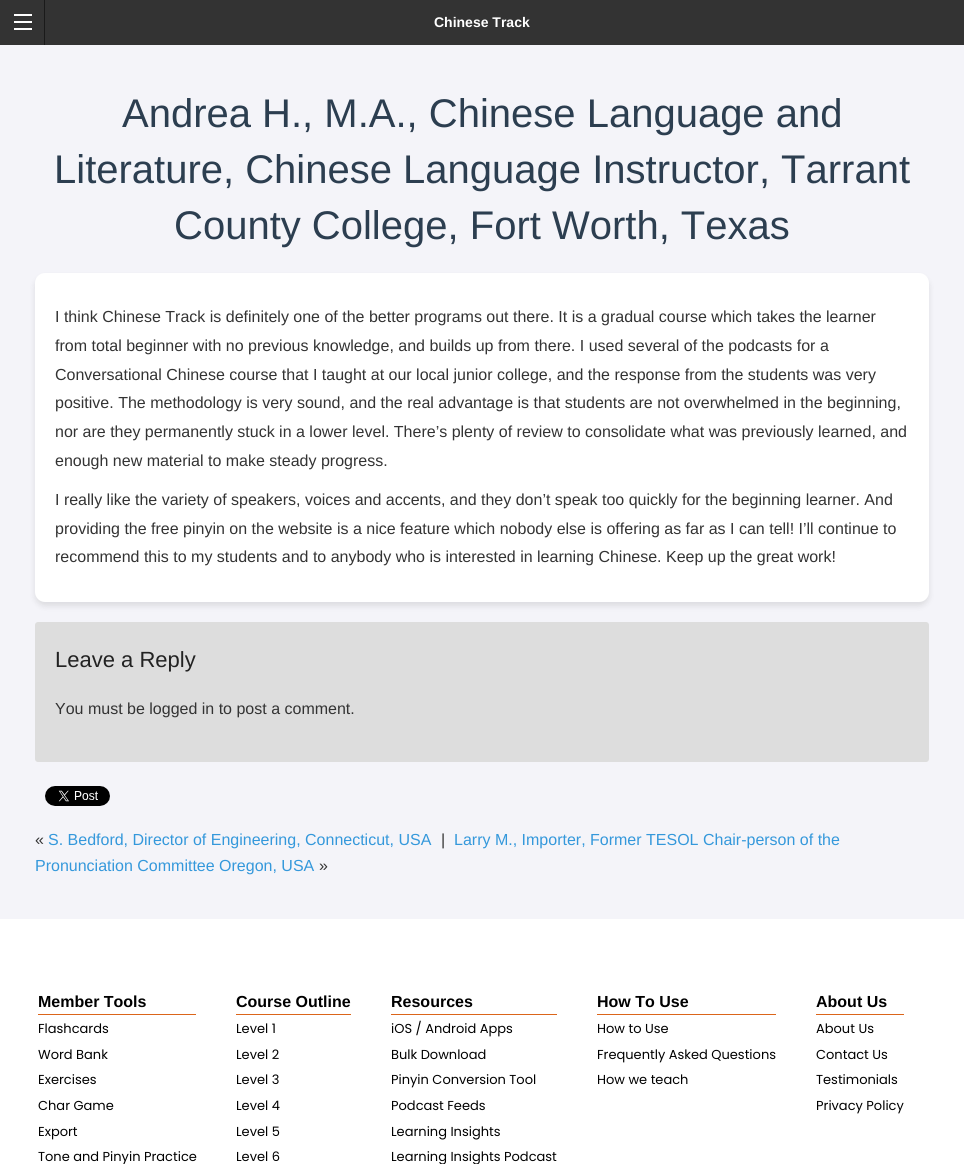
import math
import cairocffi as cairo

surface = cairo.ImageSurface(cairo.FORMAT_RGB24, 964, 1164)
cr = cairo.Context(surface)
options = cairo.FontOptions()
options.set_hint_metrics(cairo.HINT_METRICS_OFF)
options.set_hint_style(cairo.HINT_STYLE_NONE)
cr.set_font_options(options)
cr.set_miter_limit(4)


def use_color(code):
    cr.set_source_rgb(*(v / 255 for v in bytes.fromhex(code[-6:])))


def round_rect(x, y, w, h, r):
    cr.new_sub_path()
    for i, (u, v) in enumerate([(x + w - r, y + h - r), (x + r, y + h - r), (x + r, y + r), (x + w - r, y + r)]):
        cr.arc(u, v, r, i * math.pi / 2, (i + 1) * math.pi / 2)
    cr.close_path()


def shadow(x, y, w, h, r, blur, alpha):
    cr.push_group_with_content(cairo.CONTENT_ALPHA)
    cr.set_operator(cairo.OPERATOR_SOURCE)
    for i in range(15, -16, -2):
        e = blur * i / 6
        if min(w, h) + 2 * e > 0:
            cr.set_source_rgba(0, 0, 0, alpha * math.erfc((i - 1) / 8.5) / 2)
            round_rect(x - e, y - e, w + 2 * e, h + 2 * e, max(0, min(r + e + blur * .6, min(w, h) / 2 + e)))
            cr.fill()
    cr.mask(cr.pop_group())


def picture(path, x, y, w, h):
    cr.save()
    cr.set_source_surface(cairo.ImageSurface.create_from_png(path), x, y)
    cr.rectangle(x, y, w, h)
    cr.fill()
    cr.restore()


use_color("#f4f4f9")
cr.paint()
use_color("#333333")
cr.rectangle(0, 0, 964, 45)
cr.fill()
use_color("#1a1a1a")
cr.rectangle(44, 0, 1, 45)
cr.fill()
use_color("#ffffff")
cr.rectangle(14, 28, 18, 2)
cr.fill()
cr.rectangle(14, 21, 18, 2)
cr.fill()
cr.rectangle(14, 14, 18, 2)
cr.fill()
cr.select_font_face("Liberation Sans", cairo.FONT_SLANT_NORMAL, cairo.FONT_WEIGHT_BOLD)
cr.set_font_size(14)
cr.move_to(434, 27)
cr.show_text("Chinese Track")
cr.select_font_face("Liberation Sans")
cr.set_font_size(40)
use_color("#2c3e50")
cr.move_to(122, 127)
cr.show_text("Andrea H., M.A., Chinese Language and")
cr.move_to(54, 183)
cr.show_text("Literature, Chinese Language Instructor, Tarrant")
cr.move_to(174, 239)
cr.show_text("County College, Fort Worth, Texas")
use_color("#000000")
shadow(35, 277, 894, 329, 10, 3, 0.1)
use_color("#ffffff")
round_rect(35, 273, 894, 329, 10)
cr.fill()
cr.set_font_size(16)
use_color("#333333")
cr.move_to(55, 322)
cr.show_text("I think Chinese Track is definitely one of the better programs out there. It is a gradual course which takes the learner")
cr.move_to(55, 351)
cr.show_text("from total beginner with no previous knowledge, and builds up from there. I used several of the podcasts for a")
cr.move_to(55, 380)
cr.show_text("Conversational Chinese course that I taught at our local junior college, and the response from the students was very")
cr.move_to(55, 408)
cr.show_text("positive. The methodology is very sound, and the real advantage is that students are not overwhelmed in the beginning,")
cr.move_to(55, 437)
cr.show_text("nor are they permanently stuck in a lower level. There’s plenty of review to consolidate what was previously learned, and")
cr.move_to(55, 466)
cr.show_text("enough new material to make steady progress.")
cr.move_to(55, 505)
cr.show_text("I really like the variety of speakers, voices and accents, and they don’t speak too quickly for the beginning learner. And")
cr.move_to(55, 534)
cr.show_text("providing the free pinyin on the website is a nice feature which nobody else is offering as far as I can tell! I’ll continue to")
cr.move_to(55, 562)
cr.show_text("recommend this to my students and to anybody who is interested in learning Chinese. Keep up the great work!")
use_color("#dddddd")
round_rect(35, 622, 894, 140, 3)
cr.fill()
cr.set_font_size(22)
use_color("#222222")
cr.move_to(55, 667)
cr.show_text("Leave a Reply")
cr.set_font_size(16)
use_color("#333333")
cr.move_to(55, 714)
cr.show_text("You must be logged in to post a comment.")
picture("img1.png", 45, 786, 65, 20)
cr.move_to(35, 845)
cr.show_text("«")
use_color("#3498db")
cr.move_to(48, 845)
cr.show_text("S. Bedford, Director of Engineering, Connecticut, USA")
use_color("#333333")
cr.move_to(441, 845)
cr.show_text("|")
use_color("#3498db")
cr.move_to(454, 845)
cr.show_text("Larry M., Importer, Former TESOL Chair-person of the")
cr.move_to(35, 871)
cr.show_text("Pronunciation Committee Oregon, USA")
use_color("#333333")
cr.move_to(319, 871)
cr.show_text("»")
use_color("#ffffff")
cr.rectangle(0, 919, 964, 245)
cr.fill()
cr.select_font_face("Liberation Sans", cairo.FONT_SLANT_NORMAL, cairo.FONT_WEIGHT_BOLD)
use_color("#000000")
cr.move_to(38, 1007)
cr.show_text("Member Tools")
use_color("#db651a")
cr.rectangle(38, 1014, 158, 1)
cr.fill()
cr.select_font_face("Poppins")
cr.set_font_size(13)
use_color("#000000")
cr.move_to(38, 1033)
cr.show_text("Flashcards")
cr.move_to(38, 1059)
cr.show_text("Word Bank")
cr.move_to(38, 1084)
cr.show_text("Exercises")
cr.move_to(38, 1110)
cr.show_text("Char Game")
cr.move_to(38, 1136)
cr.show_text("Export")
cr.move_to(38, 1161)
cr.show_text("Tone and Pinyin Practice")
cr.select_font_face("Liberation Sans", cairo.FONT_SLANT_NORMAL, cairo.FONT_WEIGHT_BOLD)
cr.set_font_size(16)
cr.move_to(236, 1007)
cr.show_text("Course Outline")
use_color("#db651a")
cr.rectangle(236, 1014, 115, 1)
cr.fill()
cr.select_font_face("Poppins")
cr.set_font_size(13)
use_color("#000000")
cr.move_to(236, 1033)
cr.show_text("Level 1")
cr.move_to(236, 1059)
cr.show_text("Level 2")
cr.move_to(236, 1084)
cr.show_text("Level 3")
cr.move_to(236, 1110)
cr.show_text("Level 4")
cr.move_to(236, 1136)
cr.show_text("Level 5")
cr.move_to(236, 1161)
cr.show_text("Level 6")
cr.select_font_face("Liberation Sans", cairo.FONT_SLANT_NORMAL, cairo.FONT_WEIGHT_BOLD)
cr.set_font_size(16)
cr.move_to(391, 1007)
cr.show_text("Resources")
use_color("#db651a")
cr.rectangle(391, 1014, 166, 1)
cr.fill()
cr.select_font_face("Poppins")
cr.set_font_size(13)
use_color("#000000")
cr.move_to(391, 1033)
cr.show_text("iOS / Android Apps")
cr.move_to(391, 1059)
cr.show_text("Bulk Download")
cr.move_to(391, 1084)
cr.show_text("Pinyin Conversion Tool")
cr.move_to(391, 1110)
cr.show_text("Podcast Feeds")
cr.move_to(391, 1136)
cr.show_text("Learning Insights")
cr.move_to(391, 1161)
cr.show_text("Learning Insights Podcast")
cr.select_font_face("Liberation Sans", cairo.FONT_SLANT_NORMAL, cairo.FONT_WEIGHT_BOLD)
cr.set_font_size(16)
cr.move_to(597, 1007)
cr.show_text("How To Use")
use_color("#db651a")
cr.rectangle(597, 1014, 179, 1)
cr.fill()
cr.select_font_face("Poppins")
cr.set_font_size(13)
use_color("#000000")
cr.move_to(597, 1033)
cr.show_text("How to Use")
cr.move_to(597, 1059)
cr.show_text("Frequently Asked Questions")
cr.move_to(597, 1084)
cr.show_text("How we teach")
cr.select_font_face("Liberation Sans", cairo.FONT_SLANT_NORMAL, cairo.FONT_WEIGHT_BOLD)
cr.set_font_size(16)
cr.move_to(816, 1007)
cr.show_text("About Us")
use_color("#db651a")
cr.rectangle(816, 1014, 88, 1)
cr.fill()
cr.select_font_face("Poppins")
cr.set_font_size(13)
use_color("#000000")
cr.move_to(816, 1033)
cr.show_text("About Us")
cr.move_to(816, 1059)
cr.show_text("Contact Us")
cr.move_to(816, 1084)
cr.show_text("Testimonials")
cr.move_to(816, 1110)
cr.show_text("Privacy Policy")
surface.write_to_png("result.png")
